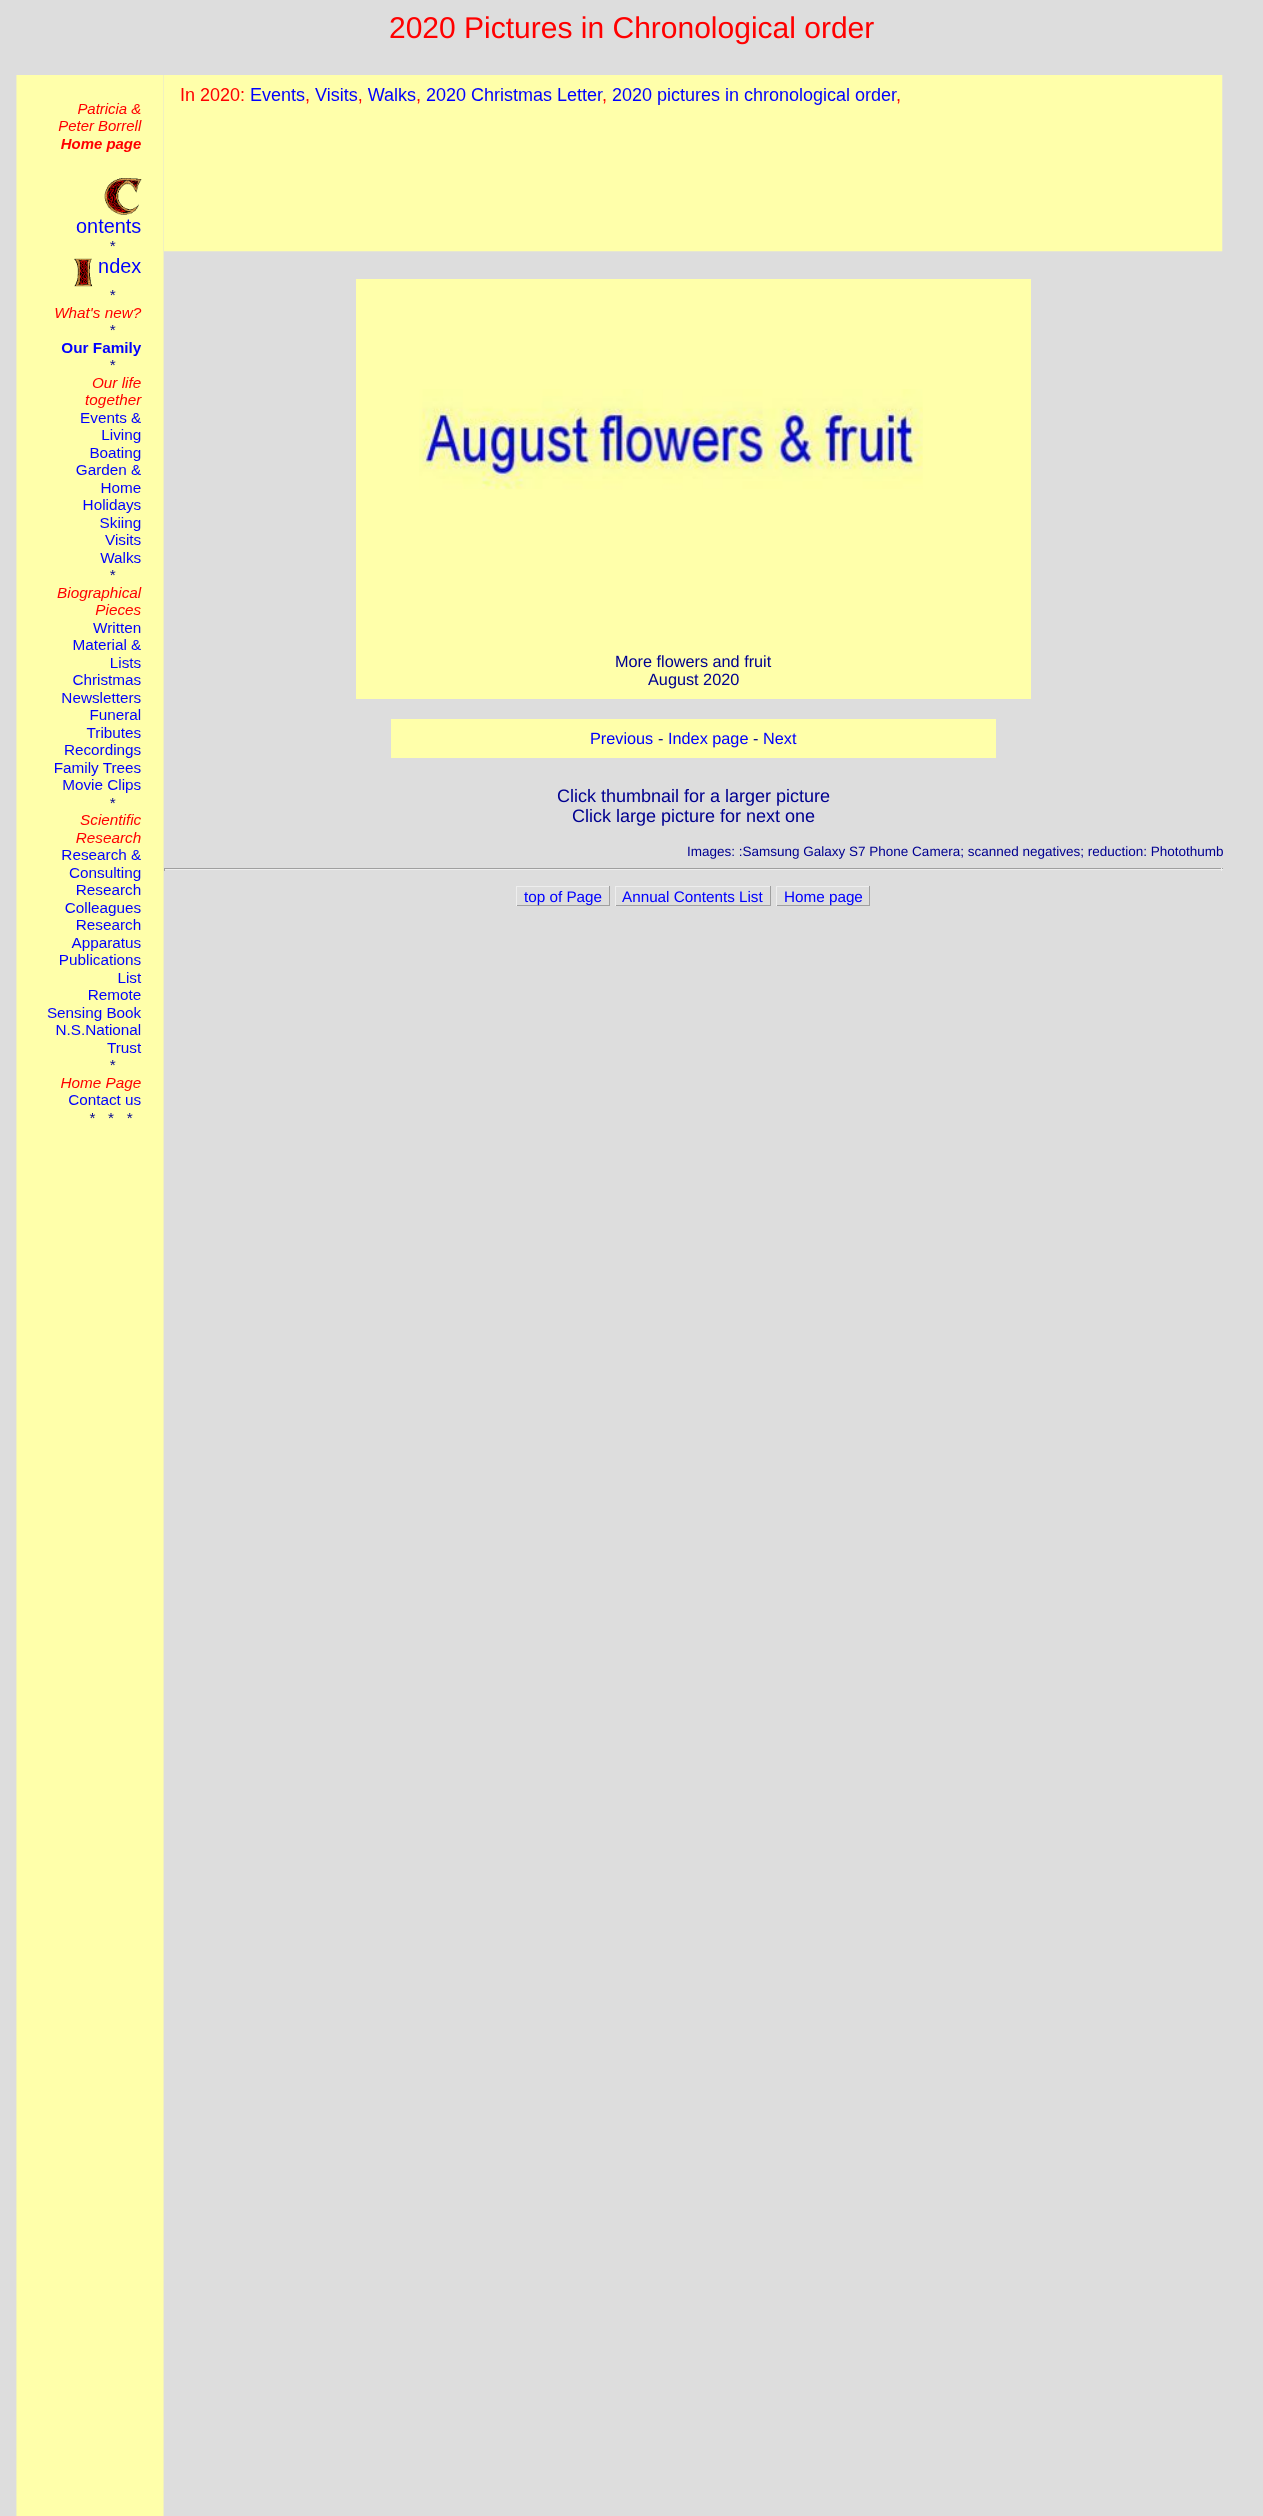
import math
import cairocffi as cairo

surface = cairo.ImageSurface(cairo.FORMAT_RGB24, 1263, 2516)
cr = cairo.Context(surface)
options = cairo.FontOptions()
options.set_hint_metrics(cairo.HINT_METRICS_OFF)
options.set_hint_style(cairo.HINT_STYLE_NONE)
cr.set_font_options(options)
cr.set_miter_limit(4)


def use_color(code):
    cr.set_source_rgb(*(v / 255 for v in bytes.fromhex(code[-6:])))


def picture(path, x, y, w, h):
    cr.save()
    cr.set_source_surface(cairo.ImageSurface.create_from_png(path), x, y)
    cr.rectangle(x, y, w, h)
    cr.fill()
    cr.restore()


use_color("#dddddd")
cr.paint()
cr.select_font_face("Liberation Sans")
cr.set_font_size(30)
use_color("#ff0000")
cr.move_to(389, 38)
cr.show_text("2020 Pictures in Chronological order")
picture("img1.png", 16, 75, 148, 2441)
picture("img2.png", 164, 75, 1059, 177)
use_color("#ffffaa")
cr.rectangle(356, 279, 675, 420)
cr.fill()
picture("img3.png", 419, 389, 504, 101)
cr.set_font_size(16.25)
use_color("#000090")
cr.move_to(615, 667)
cr.show_text("More flowers and fruit")
cr.move_to(648, 685)
cr.show_text("August 2020")
use_color("#ffffaa")
cr.rectangle(391, 719, 605, 39)
cr.fill()
use_color("#0000ff")
cr.move_to(590, 744)
cr.show_text("Previous")
use_color("#000090")
cr.move_to(658, 744)
cr.show_text("-")
use_color("#0000ff")
cr.move_to(668, 744)
cr.show_text("Index page")
use_color("#000090")
cr.move_to(753, 744)
cr.show_text("-")
use_color("#0000ff")
cr.move_to(763, 744)
cr.show_text("Next")
cr.set_font_size(18)
use_color("#000090")
cr.move_to(557, 802)
cr.show_text("Click thumbnail for a larger picture")
cr.move_to(572, 822)
cr.show_text("Click large picture for next one")
cr.set_font_size(13.5)
cr.move_to(687, 856)
cr.show_text("Images: :Samsung Galaxy S7 Phone Camera; scanned negatives; reduction: Photothumb")
use_color("#9f9f9f")
cr.rectangle(164, 868, 1059, 1)
cr.fill()
use_color("#eeeeee")
cr.rectangle(1221, 868, 1, 3)
cr.fill()
cr.rectangle(164, 869, 1059, 1)
cr.fill()
use_color("#9f9f9f")
cr.rectangle(164, 868, 1, 3)
cr.fill()
use_color("#eeeeee")
cr.rectangle(516, 886, 94, 1)
cr.fill()
use_color("#9f9f9f")
cr.rectangle(609, 886, 1, 20)
cr.fill()
cr.rectangle(516, 905, 94, 1)
cr.fill()
cr.set_font_size(15.25)
use_color("#0000ff")
cr.move_to(524, 902)
cr.show_text("top of Page")
use_color("#eeeeee")
cr.rectangle(516, 886, 1, 20)
cr.fill()
use_color("#0000ff")
cr.move_to(622, 902)
cr.show_text("Annual Contents List")
use_color("#eeeeee")
cr.rectangle(615, 886, 156, 1)
cr.fill()
use_color("#9f9f9f")
cr.rectangle(770, 886, 1, 20)
cr.fill()
cr.rectangle(615, 905, 156, 1)
cr.fill()
use_color("#eeeeee")
cr.rectangle(615, 886, 1, 20)
cr.fill()
cr.rectangle(776, 886, 94, 1)
cr.fill()
use_color("#9f9f9f")
cr.rectangle(869, 886, 1, 20)
cr.fill()
cr.rectangle(776, 905, 94, 1)
cr.fill()
use_color("#0000ff")
cr.move_to(784, 902)
cr.show_text("Home page")
use_color("#eeeeee")
cr.rectangle(776, 886, 1, 20)
cr.fill()
surface.write_to_png("result.png")
